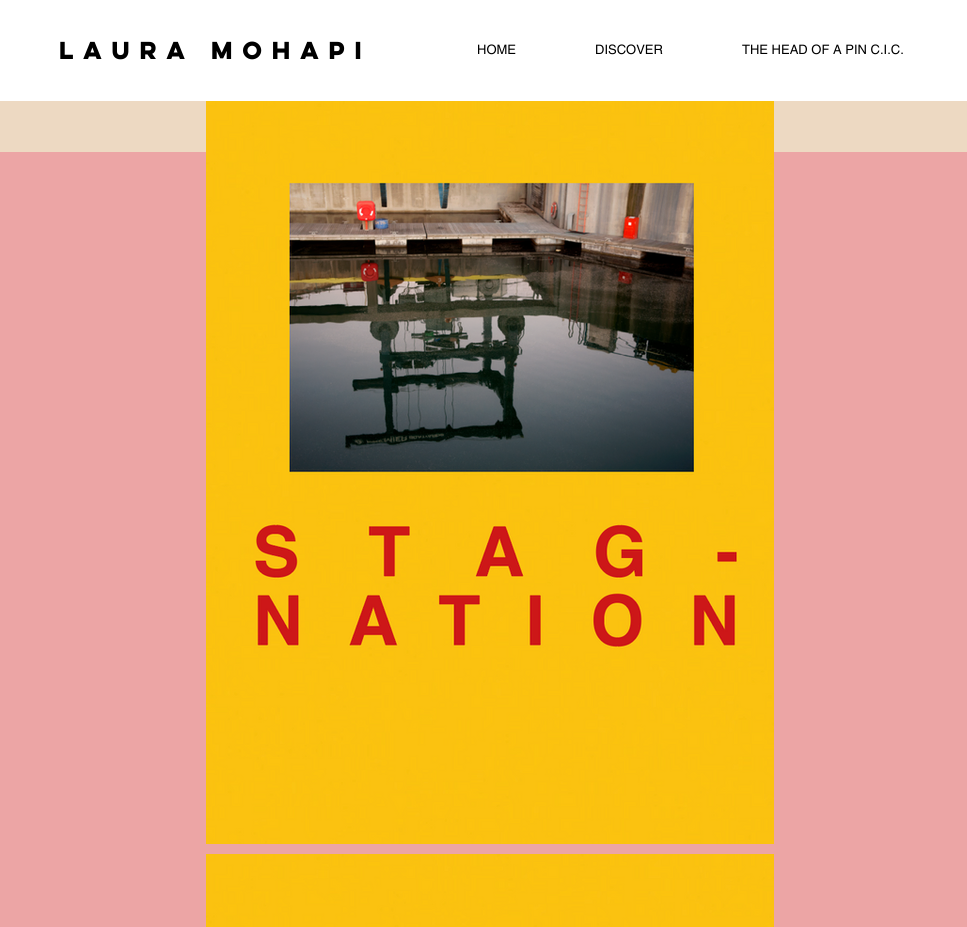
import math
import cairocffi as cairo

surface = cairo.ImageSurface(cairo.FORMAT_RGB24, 967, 927)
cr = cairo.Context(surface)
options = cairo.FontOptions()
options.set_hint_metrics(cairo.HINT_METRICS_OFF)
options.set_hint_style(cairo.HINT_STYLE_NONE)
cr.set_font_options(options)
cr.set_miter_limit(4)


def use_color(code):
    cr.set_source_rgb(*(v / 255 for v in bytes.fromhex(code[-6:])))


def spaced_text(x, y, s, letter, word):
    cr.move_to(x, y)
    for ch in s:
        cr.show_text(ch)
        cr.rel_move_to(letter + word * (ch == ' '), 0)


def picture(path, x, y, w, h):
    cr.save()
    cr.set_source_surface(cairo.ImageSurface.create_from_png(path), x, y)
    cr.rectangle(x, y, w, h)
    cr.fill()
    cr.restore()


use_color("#edd9c2")
cr.paint()
use_color("#ffffff")
cr.rectangle(0, 0, 967, 101)
cr.fill()
cr.select_font_face("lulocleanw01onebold", cairo.FONT_SLANT_NORMAL, cairo.FONT_WEIGHT_BOLD)
cr.set_font_size(22)
use_color("#000000")
spaced_text(59, 59, "Laura Mohapi", 5, 0)
cr.select_font_face("helvetica")
cr.set_font_size(13)
cr.move_to(477, 54)
cr.show_text("HOME")
cr.move_to(595, 54)
cr.show_text("DISCOVER")
cr.move_to(742, 54)
cr.show_text("THE HEAD OF A PIN C.I.C.")
use_color("#eca5a5")
cr.rectangle(0, 152, 967, 775)
cr.fill()
picture("img1.png", 206, 101, 568, 743)
picture("img2.png", 206, 854, 568, 73)
surface.write_to_png("result.png")
